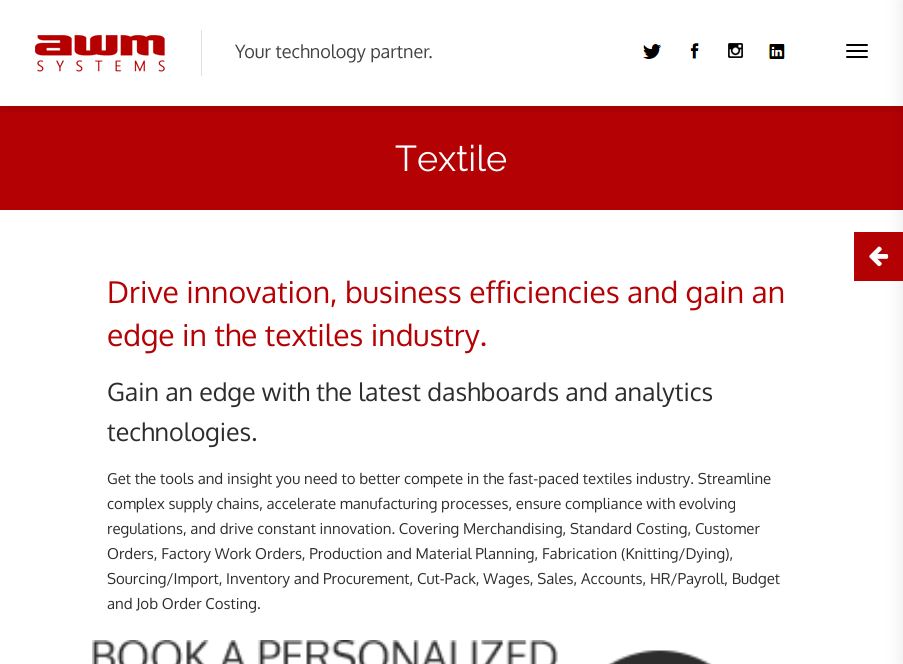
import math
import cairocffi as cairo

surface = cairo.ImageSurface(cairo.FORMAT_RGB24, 903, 664)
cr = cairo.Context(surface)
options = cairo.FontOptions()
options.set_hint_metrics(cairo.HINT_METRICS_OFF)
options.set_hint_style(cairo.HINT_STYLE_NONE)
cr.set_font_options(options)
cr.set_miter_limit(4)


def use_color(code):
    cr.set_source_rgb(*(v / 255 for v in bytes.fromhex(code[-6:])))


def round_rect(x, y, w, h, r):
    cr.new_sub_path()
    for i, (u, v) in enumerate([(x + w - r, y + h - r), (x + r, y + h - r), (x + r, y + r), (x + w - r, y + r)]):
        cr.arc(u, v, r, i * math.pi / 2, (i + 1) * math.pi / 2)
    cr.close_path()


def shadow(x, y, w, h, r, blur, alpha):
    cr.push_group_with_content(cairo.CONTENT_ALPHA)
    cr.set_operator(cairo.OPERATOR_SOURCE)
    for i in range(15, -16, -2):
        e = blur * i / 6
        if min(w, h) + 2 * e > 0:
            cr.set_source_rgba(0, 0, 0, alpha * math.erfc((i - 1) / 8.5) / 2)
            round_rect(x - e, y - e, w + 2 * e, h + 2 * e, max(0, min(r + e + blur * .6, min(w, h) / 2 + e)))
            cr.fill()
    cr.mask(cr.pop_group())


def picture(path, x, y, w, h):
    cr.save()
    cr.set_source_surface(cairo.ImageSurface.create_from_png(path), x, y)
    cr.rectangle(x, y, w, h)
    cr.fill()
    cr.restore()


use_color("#ffffff")
cr.paint()
use_color("#b40104")
cr.rectangle(0, 106, 903, 104)
cr.fill()
cr.save()
cr.rectangle(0, 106, 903, 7)
cr.clip()
use_color("#000000")
shadow(0, 5, 903, 106, 0, 2.5, 0.1)
cr.restore()
picture("img1.png", 35, 30, 397, 46)
picture("img2.png", 643, 44, 19, 15)
picture("img3.png", 690, 43, 9, 16)
picture("img4.png", 728, 43, 15, 15)
picture("img5.png", 769, 44, 16, 15)
picture("img6.png", 846, 44, 22, 14)
use_color("#000000")
shadow(903, 0, 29, 664, 0, 9.5, 0.1)
cr.select_font_face("Raleway")
cr.set_font_size(36)
use_color("#ffffff")
cr.move_to(395, 171)
cr.show_text("Textile")
use_color("#b40104")
cr.rectangle(854, 232, 49, 49)
cr.fill()
picture("img7.png", 869, 246, 20, 21)
cr.select_font_face("Oxygen")
cr.set_font_size(30)
cr.move_to(107, 303)
cr.show_text("Drive innovation, business efficiencies and gain an")
cr.move_to(107, 346)
cr.show_text("edge in the textiles industry.")
cr.set_font_size(25)
use_color("#2d2d2d")
cr.move_to(107, 401)
cr.show_text("Gain an edge with the latest dashboards and analytics")
cr.move_to(107, 441)
cr.show_text("technologies.")
cr.set_font_size(15)
cr.move_to(107, 484)
cr.show_text("Get the tools and insight you need to better compete in the fast-paced textiles industry. Streamline")
cr.move_to(107, 509)
cr.show_text("complex supply chains, accelerate manufacturing processes, ensure compliance with evolving")
cr.move_to(107, 534)
cr.show_text("regulations, and drive constant innovation. Covering Merchandising, Standard Costing, Customer")
cr.move_to(107, 559)
cr.show_text("Orders, Factory Work Orders, Production and Material Planning, Fabrication (Knitting/Dying),")
cr.move_to(107, 584)
cr.show_text("Sourcing/Import, Inventory and Procurement, Cut-Pack, Wages, Sales, Accounts, HR/Payroll, Budget")
cr.move_to(107, 609)
cr.show_text("and Job Order Costing.")
picture("img8.png", 92, 640, 720, 24)
surface.write_to_png("result.png")
